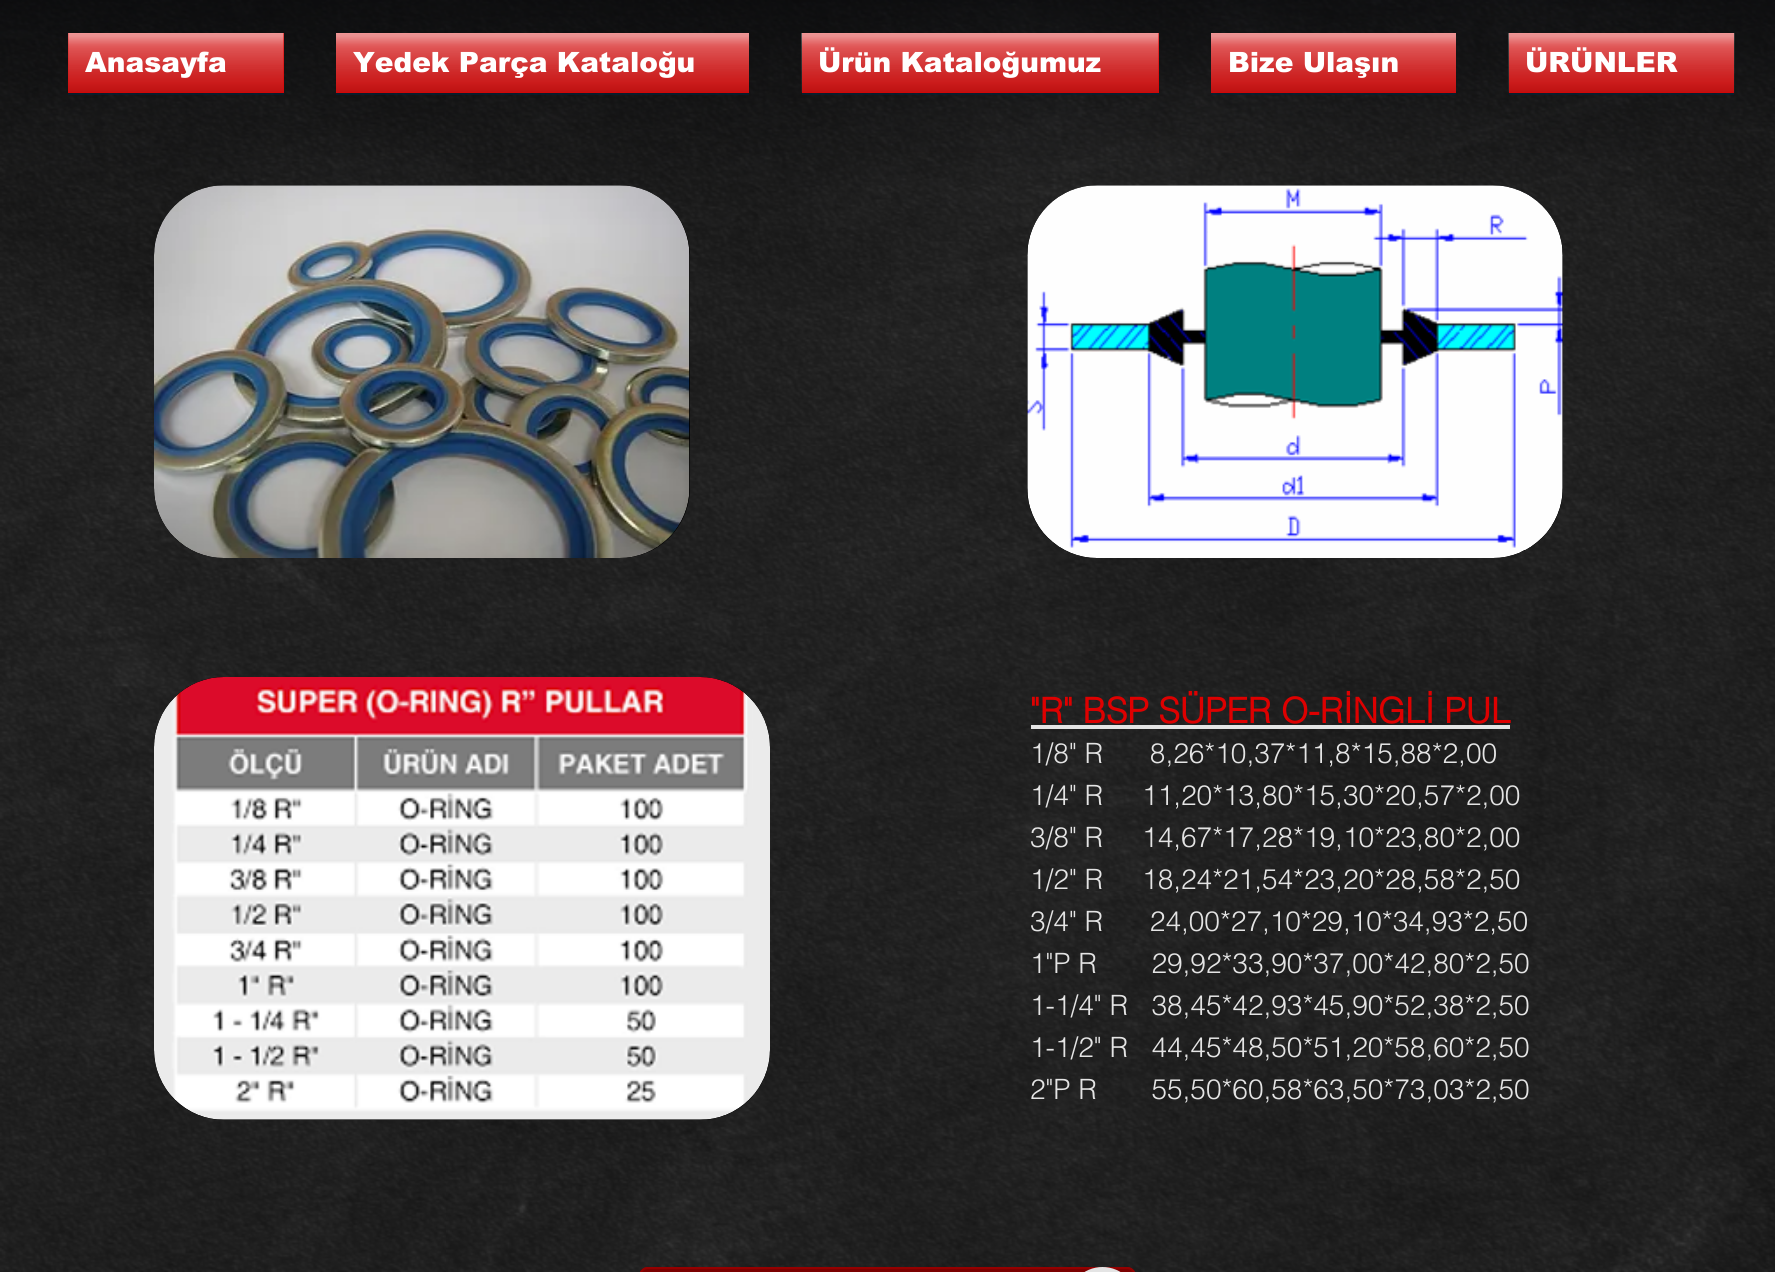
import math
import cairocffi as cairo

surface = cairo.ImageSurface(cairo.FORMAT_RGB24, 1775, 1272)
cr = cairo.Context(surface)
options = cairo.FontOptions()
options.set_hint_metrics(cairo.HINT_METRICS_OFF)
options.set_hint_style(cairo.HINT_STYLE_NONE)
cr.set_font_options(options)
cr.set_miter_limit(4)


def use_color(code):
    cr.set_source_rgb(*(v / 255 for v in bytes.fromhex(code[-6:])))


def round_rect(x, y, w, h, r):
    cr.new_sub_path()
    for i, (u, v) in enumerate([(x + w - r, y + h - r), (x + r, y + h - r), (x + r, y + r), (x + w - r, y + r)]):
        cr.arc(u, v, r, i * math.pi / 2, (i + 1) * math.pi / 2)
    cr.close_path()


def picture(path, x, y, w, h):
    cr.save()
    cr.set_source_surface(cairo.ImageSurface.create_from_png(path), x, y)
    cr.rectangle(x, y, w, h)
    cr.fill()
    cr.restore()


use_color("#000000")
cr.paint()
picture("img1.png", 0, 0, 1775, 1272)
cr.set_source_rgba(0.008, 0.133, 0.227, 0.6)
cr.new_path()
cr.move_to(68, 35)
cr.line_to(68, 95)
cr.line_to(284, 95)
cr.line_to(284, 35)
cr.line_to(284, 93)
cr.line_to(68, 93)
cr.close_path()
cr.fill()
use_color("#de0000")
cr.rectangle(68, 33, 216, 60)
cr.fill()
picture("img2.png", 68, 33, 216, 60)
picture("img3.png", 68, 34, 216, 59)
cr.select_font_face("arial Black")
cr.set_font_size(28)
use_color("#ffffff")
cr.move_to(85, 72)
cr.show_text("Anasayfa")
cr.set_source_rgba(0.008, 0.133, 0.227, 0.6)
cr.rectangle(336, 93, 413, 2)
cr.fill()
use_color("#de0000")
cr.rectangle(336, 33, 413, 60)
cr.fill()
picture("img4.png", 336, 33, 413, 60)
picture("img5.png", 336, 34, 413, 59)
use_color("#ffffff")
cr.move_to(353, 72)
cr.show_text("Yedek Parça Kataloğu")
cr.set_source_rgba(0.008, 0.133, 0.227, 0.6)
cr.new_path()
cr.move_to(802, 93)
cr.line_to(802, 95)
cr.line_to(1159, 95)
cr.line_to(1159, 35)
cr.line_to(1158, 35)
cr.line_to(1158, 93)
cr.close_path()
cr.fill()
use_color("#de0000")
cr.rectangle(802, 33, 357, 60)
cr.fill()
picture("img6.png", 801, 33, 358, 60)
picture("img7.png", 802, 34, 357, 59)
use_color("#ffffff")
cr.move_to(818, 72)
cr.show_text("Ürün Kataloğumuz")
cr.set_source_rgba(0.008, 0.133, 0.227, 0.6)
cr.rectangle(1211, 93, 245, 2)
cr.fill()
use_color("#de0000")
cr.rectangle(1211, 33, 245, 60)
cr.fill()
picture("img8.png", 1211, 33, 245, 60)
picture("img9.png", 1211, 34, 245, 59)
use_color("#ffffff")
cr.move_to(1228, 72)
cr.show_text("Bize Ulaşın")
cr.set_source_rgba(0.008, 0.133, 0.227, 0.6)
cr.rectangle(1509, 93, 225, 2)
cr.fill()
use_color("#de0000")
cr.rectangle(1509, 33, 225, 60)
cr.fill()
picture("img10.png", 1508, 33, 227, 60)
picture("img11.png", 1509, 34, 225, 59)
use_color("#ffffff")
cr.move_to(1525, 72)
cr.show_text("ÜRÜNLER")
use_color("#000000")
round_rect(154, 186, 536, 372, 70)
cr.fill()
picture("img12.png", 154, 185, 536, 373)
round_rect(1027, 186, 536, 372, 70)
cr.fill()
picture("img13.png", 1027, 185, 536, 373)
round_rect(154, 677, 616, 443, 70)
cr.fill()
picture("img14.png", 154, 677, 616, 443)
cr.select_font_face("helvetica", cairo.FONT_SLANT_NORMAL, cairo.FONT_WEIGHT_BOLD)
cr.set_font_size(35)
use_color("#de0000")
cr.move_to(1030, 723)
cr.show_text("\"R\" BSP SÜPER O-RİNGLİ PUL")
use_color("#e4e4e4")
cr.rectangle(1031, 725, 479, 4)
cr.fill()
cr.select_font_face("helvetica Light")
cr.set_font_size(28)
cr.move_to(1030, 763)
cr.show_text("1/8\" R      8,26*10,37*11,8*15,88*2,00")
cr.move_to(1030, 805)
cr.show_text("1/4\" R     11,20*13,80*15,30*20,57*2,00")
cr.move_to(1030, 847)
cr.show_text("3/8\" R     14,67*17,28*19,10*23,80*2,00")
cr.move_to(1030, 889)
cr.show_text("1/2\" R     18,24*21,54*23,20*28,58*2,50")
cr.move_to(1030, 931)
cr.show_text("3/4\" R      24,00*27,10*29,10*34,93*2,50")
cr.move_to(1030, 973)
cr.show_text("1\"P R       29,92*33,90*37,00*42,80*2,50")
cr.move_to(1030, 1015)
cr.show_text("1-1/4\" R   38,45*42,93*45,90*52,38*2,50")
cr.move_to(1030, 1057)
cr.show_text("1-1/2\" R   44,45*48,50*51,20*58,60*2,50")
cr.move_to(1030, 1099)
cr.show_text("2\"P R       55,50*60,58*63,50*73,03*2,50")
use_color("#940000")
round_rect(639, 1267, 497, 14, 9)
cr.fill()
picture("img15.png", 640, 1268, 495, 4)
round_rect(640, 1268, 495, 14, 8)
cr.stroke()
picture("img16.png", 1084, 1267, 37, 5)
surface.write_to_png("result.png")
